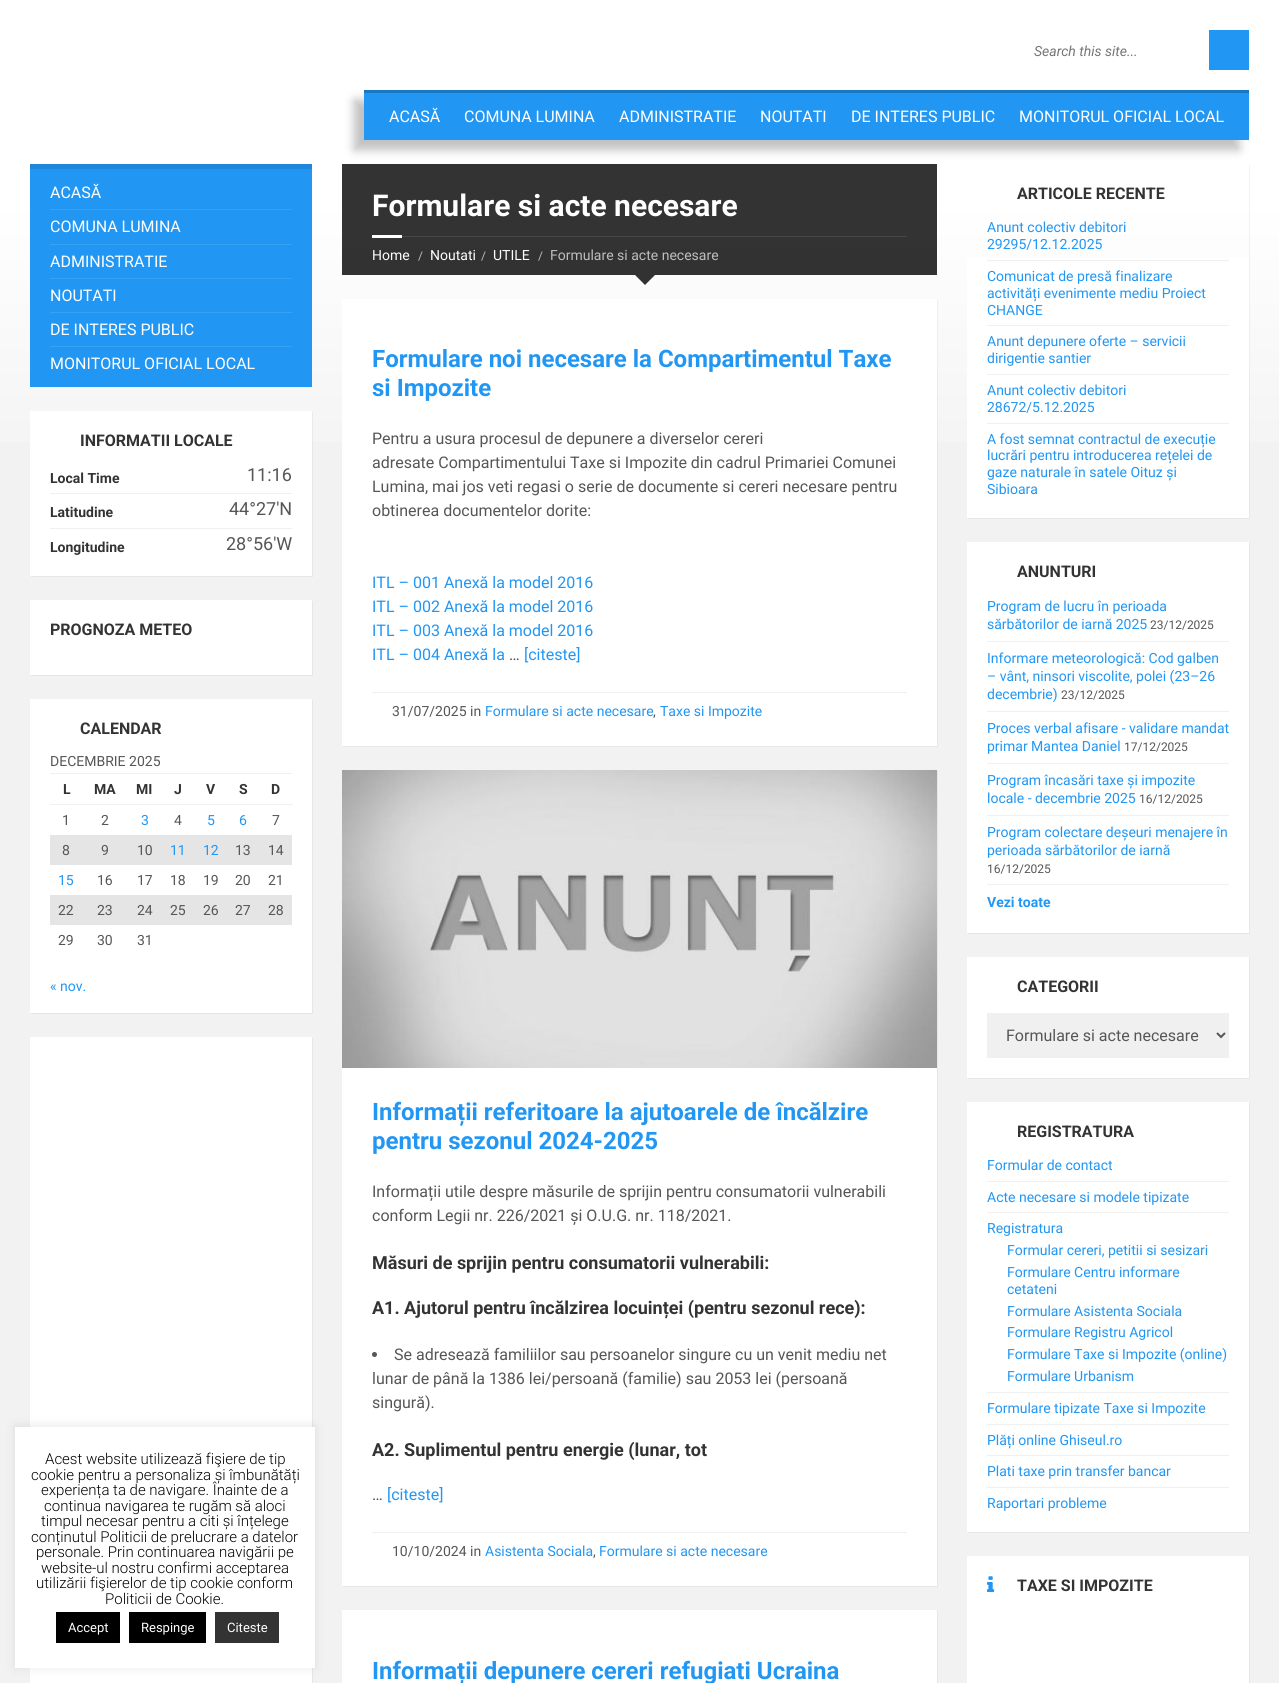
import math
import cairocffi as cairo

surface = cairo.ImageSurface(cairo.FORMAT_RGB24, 1279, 1683)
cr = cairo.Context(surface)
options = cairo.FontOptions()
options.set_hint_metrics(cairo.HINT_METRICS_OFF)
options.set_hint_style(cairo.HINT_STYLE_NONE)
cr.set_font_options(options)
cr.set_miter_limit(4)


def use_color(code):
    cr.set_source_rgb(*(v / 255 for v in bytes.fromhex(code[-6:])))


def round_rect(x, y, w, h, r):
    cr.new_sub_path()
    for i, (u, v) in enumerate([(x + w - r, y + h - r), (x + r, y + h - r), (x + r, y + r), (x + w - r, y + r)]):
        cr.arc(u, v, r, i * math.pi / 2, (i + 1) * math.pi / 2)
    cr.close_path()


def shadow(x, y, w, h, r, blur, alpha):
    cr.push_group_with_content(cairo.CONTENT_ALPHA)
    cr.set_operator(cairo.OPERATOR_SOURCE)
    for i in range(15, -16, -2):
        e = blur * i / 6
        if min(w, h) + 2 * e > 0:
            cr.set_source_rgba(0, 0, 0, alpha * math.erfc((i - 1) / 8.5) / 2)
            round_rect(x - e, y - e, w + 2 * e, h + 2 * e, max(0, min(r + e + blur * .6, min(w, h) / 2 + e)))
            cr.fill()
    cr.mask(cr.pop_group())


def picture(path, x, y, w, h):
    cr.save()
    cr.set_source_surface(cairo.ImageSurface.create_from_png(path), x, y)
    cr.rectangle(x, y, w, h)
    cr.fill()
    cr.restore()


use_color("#f2f2f2")
cr.paint()
use_color("#ffffff")
cr.rectangle(0, 0, 1279, 200)
cr.fill()
use_color("#333333")
cr.rectangle(342, 164, 595, 36)
cr.fill()
gradient = cairo.LinearGradient(640, 200, 640, 500)
gradient.add_color_stop_rgba(0, 1, 1, 1, 1)
gradient.add_color_stop_rgba(1, 0.949, 0.949, 0.949, 1)
cr.set_source(gradient)
cr.rectangle(0, 200, 1279, 242)
cr.fill()
gradient = cairo.LinearGradient(640, 200, 640, 500)
gradient.add_color_stop_rgba(0, 0.2, 0.2, 0.2, 1)
gradient.add_color_stop_rgba(1, 0.188, 0.188, 0.188, 1)
cr.set_source(gradient)
cr.rectangle(342, 200, 595, 75)
cr.fill()
cr.select_font_face("Roboto", cairo.FONT_SLANT_ITALIC)
cr.set_font_size(14)
use_color("#757575")
cr.move_to(1034, 56)
cr.show_text("Search this site...")
use_color("#2196f3")
cr.rectangle(1209, 30, 40, 40)
cr.fill()
cr.set_source_rgba(0, 0, 0, 0.05)
cr.new_path()
cr.move_to(968, 518)
cr.line_to(968, 519)
cr.line_to(1250, 519)
cr.line_to(1250, 165)
cr.line_to(1249, 165)
cr.line_to(1249, 518)
cr.close_path()
cr.fill()
use_color("#000000")
shadow(354, 100, 885, 50, 0, 5, 0.25)
use_color("#2196f3")
cr.rectangle(364, 93, 885, 47)
cr.fill()
use_color("#1a78c2")
cr.rectangle(364, 90, 885, 3)
cr.fill()
cr.select_font_face("Roboto")
cr.set_font_size(16)
use_color("#ffffff")
cr.move_to(389, 122)
cr.show_text("ACASĂ")
cr.move_to(464, 122)
cr.show_text("COMUNA LUMINA")
cr.move_to(619, 122)
cr.show_text("ADMINISTRATIE")
cr.move_to(760, 122)
cr.show_text("NOUTATI")
cr.move_to(851, 122)
cr.show_text("DE INTERES PUBLIC")
cr.move_to(1019, 122)
cr.show_text("MONITORUL OFICIAL LOCAL")
use_color("#2196f3")
cr.rectangle(30, 169, 282, 218)
cr.fill()
use_color("#1e87db")
cr.rectangle(30, 164, 282, 5)
cr.fill()
use_color("#ffffff")
cr.move_to(50, 198)
cr.show_text("ACASĂ")
use_color("#37a1f4")
cr.rectangle(50, 209, 242, 1)
cr.fill()
use_color("#ffffff")
cr.move_to(50, 232)
cr.show_text("COMUNA LUMINA")
use_color("#37a1f4")
cr.rectangle(50, 244, 242, 1)
cr.fill()
use_color("#ffffff")
cr.move_to(50, 267)
cr.show_text("ADMINISTRATIE")
use_color("#37a1f4")
cr.rectangle(50, 278, 242, 1)
cr.fill()
use_color("#ffffff")
cr.move_to(50, 301)
cr.show_text("NOUTATI")
use_color("#37a1f4")
cr.rectangle(50, 312, 242, 1)
cr.fill()
use_color("#ffffff")
cr.move_to(50, 335)
cr.show_text("DE INTERES PUBLIC")
use_color("#37a1f4")
cr.rectangle(50, 346, 242, 1)
cr.fill()
use_color("#ffffff")
cr.move_to(50, 369)
cr.show_text("MONITORUL OFICIAL LOCAL")
cr.set_source_rgba(0, 0, 0, 0.05)
cr.new_path()
cr.move_to(31, 576)
cr.line_to(31, 577)
cr.line_to(313, 577)
cr.line_to(313, 412)
cr.line_to(312, 412)
cr.line_to(312, 576)
cr.close_path()
cr.fill()
use_color("#ffffff")
cr.rectangle(30, 411, 282, 165)
cr.fill()
cr.select_font_face("Roboto", cairo.FONT_SLANT_NORMAL, cairo.FONT_WEIGHT_BOLD)
use_color("#333333")
cr.move_to(80, 446)
cr.show_text("INFORMATII LOCALE")
cr.set_font_size(14)
cr.move_to(50, 483)
cr.show_text("Local Time")
cr.select_font_face("Roboto")
cr.set_font_size(18)
use_color("#565656")
cr.move_to(247, 481)
cr.show_text("11:16")
use_color("#f0f0f0")
cr.rectangle(50, 493, 242, 1)
cr.fill()
cr.select_font_face("Roboto", cairo.FONT_SLANT_NORMAL, cairo.FONT_WEIGHT_BOLD)
cr.set_font_size(14)
use_color("#333333")
cr.move_to(50, 517)
cr.show_text("Latitudine")
cr.select_font_face("Roboto")
cr.set_font_size(18)
use_color("#565656")
cr.move_to(229, 515)
cr.show_text("44°27'N")
use_color("#f0f0f0")
cr.rectangle(50, 528, 242, 1)
cr.fill()
cr.select_font_face("Roboto", cairo.FONT_SLANT_NORMAL, cairo.FONT_WEIGHT_BOLD)
cr.set_font_size(14)
use_color("#333333")
cr.move_to(50, 552)
cr.show_text("Longitudine")
cr.select_font_face("Roboto")
cr.set_font_size(18)
use_color("#565656")
cr.move_to(226, 550)
cr.show_text("28°56'W")
use_color("#e6e6e6")
cr.new_path()
cr.move_to(31, 675)
cr.line_to(31, 676)
cr.line_to(313, 676)
cr.line_to(313, 601)
cr.line_to(312, 601)
cr.line_to(312, 675)
cr.close_path()
cr.fill()
use_color("#ffffff")
cr.rectangle(30, 600, 282, 75)
cr.fill()
cr.select_font_face("Roboto", cairo.FONT_SLANT_NORMAL, cairo.FONT_WEIGHT_BOLD)
cr.set_font_size(16)
use_color("#333333")
cr.move_to(50, 635)
cr.show_text("PROGNOZA METEO")
use_color("#e6e6e6")
cr.new_path()
cr.move_to(31, 1013)
cr.line_to(31, 1014)
cr.line_to(313, 1014)
cr.line_to(313, 700)
cr.line_to(312, 700)
cr.line_to(312, 1013)
cr.close_path()
cr.fill()
use_color("#ffffff")
cr.rectangle(30, 699, 282, 314)
cr.fill()
use_color("#333333")
cr.move_to(80, 734)
cr.show_text("CALENDAR")
use_color("#f0f0f0")
cr.rectangle(50, 773, 242, 1)
cr.fill()
cr.select_font_face("Roboto")
cr.set_font_size(14)
use_color("#565656")
cr.move_to(50, 766)
cr.show_text("DECEMBRIE 2025")
cr.select_font_face("Roboto", cairo.FONT_SLANT_NORMAL, cairo.FONT_WEIGHT_BOLD)
use_color("#333333")
cr.move_to(63, 794)
cr.show_text("L")
cr.move_to(94, 794)
cr.show_text("MA")
cr.move_to(136, 794)
cr.show_text("MI")
cr.move_to(174, 794)
cr.show_text("J")
cr.move_to(206, 794)
cr.show_text("V")
cr.move_to(239, 794)
cr.show_text("S")
use_color("#f0f0f0")
cr.rectangle(50, 804, 243, 1)
cr.fill()
use_color("#333333")
cr.move_to(271, 794)
cr.show_text("D")
cr.select_font_face("Roboto")
use_color("#565656")
cr.move_to(62, 825)
cr.show_text("1")
cr.move_to(101, 825)
cr.show_text("2")
use_color("#2196f3")
cr.move_to(141, 825)
cr.show_text("3")
use_color("#565656")
cr.move_to(174, 825)
cr.show_text("4")
use_color("#2196f3")
cr.move_to(207, 825)
cr.show_text("5")
cr.move_to(239, 825)
cr.show_text("6")
use_color("#565656")
cr.move_to(272, 825)
cr.show_text("7")
use_color("#e5e5e5")
cr.rectangle(50, 835, 242, 30)
cr.fill()
use_color("#565656")
cr.move_to(62, 855)
cr.show_text("8")
cr.move_to(101, 855)
cr.show_text("9")
cr.move_to(137, 855)
cr.show_text("10")
use_color("#2196f3")
cr.move_to(170, 855)
cr.show_text("11")
cr.move_to(203, 855)
cr.show_text("12")
use_color("#565656")
cr.move_to(235, 855)
cr.show_text("13")
cr.move_to(268, 855)
cr.show_text("14")
use_color("#2196f3")
cr.move_to(58, 885)
cr.show_text("15")
use_color("#565656")
cr.move_to(97, 885)
cr.show_text("16")
cr.move_to(137, 885)
cr.show_text("17")
cr.move_to(170, 885)
cr.show_text("18")
cr.move_to(203, 885)
cr.show_text("19")
cr.move_to(235, 885)
cr.show_text("20")
cr.move_to(268, 885)
cr.show_text("21")
use_color("#e5e5e5")
cr.rectangle(50, 895, 242, 30)
cr.fill()
use_color("#565656")
cr.move_to(58, 915)
cr.show_text("22")
cr.move_to(97, 915)
cr.show_text("23")
cr.move_to(137, 915)
cr.show_text("24")
cr.move_to(170, 915)
cr.show_text("25")
cr.move_to(203, 915)
cr.show_text("26")
cr.move_to(235, 915)
cr.show_text("27")
cr.move_to(268, 915)
cr.show_text("28")
cr.move_to(58, 945)
cr.show_text("29")
cr.move_to(97, 945)
cr.show_text("30")
cr.move_to(137, 945)
cr.show_text("31")
use_color("#2196f3")
cr.move_to(50, 991)
cr.show_text("« nov.")
use_color("#e6e6e6")
cr.new_path()
cr.move_to(31, 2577)
cr.line_to(31, 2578)
cr.line_to(313, 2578)
cr.line_to(313, 1038)
cr.line_to(312, 1038)
cr.line_to(312, 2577)
cr.close_path()
cr.fill()
use_color("#ffffff")
cr.rectangle(30, 1037, 282, 646)
cr.fill()
use_color("#474747")
cr.rectangle(402, 236, 505, 1)
cr.fill()
cr.select_font_face("Roboto", cairo.FONT_SLANT_NORMAL, cairo.FONT_WEIGHT_BOLD)
cr.set_font_size(30)
use_color("#ffffff")
cr.move_to(372, 216)
cr.show_text("Formulare si acte necesare")
cr.rectangle(372, 235, 30, 3)
cr.fill()
cr.select_font_face("Roboto")
cr.set_font_size(14)
cr.move_to(372, 260)
cr.show_text("Home")
cr.set_font_size(12)
use_color("#bebebe")
cr.move_to(418, 260)
cr.show_text("/")
cr.set_font_size(14)
use_color("#ffffff")
cr.move_to(430, 260)
cr.show_text("Noutati")
cr.set_font_size(12)
use_color("#bebebe")
cr.move_to(481, 260)
cr.show_text("/")
cr.set_font_size(14)
use_color("#ffffff")
cr.move_to(493, 260)
cr.show_text("UTILE")
cr.set_font_size(12)
use_color("#bebebe")
cr.move_to(538, 260)
cr.show_text("/")
cr.set_font_size(14)
cr.move_to(550, 260)
cr.show_text("Formulare si acte necesare")
use_color("#323232")
cr.new_path()
cr.move_to(635, 275)
cr.line_to(655, 275)
cr.line_to(645, 285)
cr.close_path()
cr.fill()
cr.set_source_rgba(0, 0, 0, 0.05)
cr.new_path()
cr.move_to(343, 746)
cr.line_to(343, 747)
cr.line_to(938, 747)
cr.line_to(938, 300)
cr.line_to(937, 300)
cr.line_to(937, 746)
cr.close_path()
cr.fill()
use_color("#ffffff")
cr.rectangle(342, 299, 595, 447)
cr.fill()
cr.select_font_face("Roboto", cairo.FONT_SLANT_NORMAL, cairo.FONT_WEIGHT_BOLD)
cr.set_font_size(24)
use_color("#2196f3")
cr.move_to(372, 367)
cr.show_text("Formulare noi necesare la Compartimentul Taxe")
cr.move_to(372, 396)
cr.show_text("si Impozite")
cr.select_font_face("Roboto")
cr.set_font_size(16)
use_color("#565656")
cr.move_to(372, 444)
cr.show_text("Pentru a usura procesul de depunere a diverselor cereri")
cr.move_to(372, 468)
cr.show_text("adresate Compartimentului Taxe si Impozite din cadrul Primariei Comunei")
cr.move_to(372, 492)
cr.show_text("Lumina, mai jos veti regasi o serie de documente si cereri necesare pentru")
cr.move_to(372, 516)
cr.show_text("obtinerea documentelor dorite:")
use_color("#2196f3")
cr.move_to(372, 588)
cr.show_text("ITL – 001 Anexă la model 2016")
cr.move_to(372, 612)
cr.show_text("ITL – 002 Anexă la model 2016")
cr.move_to(372, 636)
cr.show_text("ITL – 003 Anexă la model 2016")
cr.move_to(372, 660)
cr.show_text("ITL – 004 Anexă la")
use_color("#565656")
cr.move_to(509, 660)
cr.show_text("…")
use_color("#2196f3")
cr.move_to(524, 660)
cr.show_text("[citeste]")
use_color("#f0f0f0")
cr.rectangle(372, 692, 535, 1)
cr.fill()
cr.set_font_size(14)
use_color("#565656")
cr.move_to(392, 716)
cr.show_text("31/07/2025 in")
use_color("#2196f3")
cr.move_to(485, 716)
cr.show_text("Formulare si acte necesare")
use_color("#565656")
cr.move_to(653, 716)
cr.show_text(",")
use_color("#2196f3")
cr.move_to(660, 716)
cr.show_text("Taxe si Impozite")
use_color("#e6e6e6")
cr.new_path()
cr.move_to(343, 1586)
cr.line_to(343, 1587)
cr.line_to(938, 1587)
cr.line_to(938, 771)
cr.line_to(937, 771)
cr.line_to(937, 1586)
cr.close_path()
cr.fill()
use_color("#ffffff")
cr.rectangle(342, 1068, 595, 518)
cr.fill()
picture("img1.png", 342, 770, 595, 298)
cr.select_font_face("Roboto", cairo.FONT_SLANT_NORMAL, cairo.FONT_WEIGHT_BOLD)
cr.set_font_size(24)
use_color("#2196f3")
cr.move_to(372, 1120)
cr.show_text("Informații referitoare la ajutoarele de încălzire")
cr.move_to(372, 1149)
cr.show_text("pentru sezonul 2024-2025")
cr.select_font_face("Roboto")
cr.set_font_size(16)
use_color("#565656")
cr.move_to(372, 1197)
cr.show_text("Informații utile despre măsurile de sprijin pentru consumatorii vulnerabili")
cr.move_to(372, 1221)
cr.show_text("conform Legii nr. 226/2021 și O.U.G. nr. 118/2021.")
cr.select_font_face("Roboto", cairo.FONT_SLANT_NORMAL, cairo.FONT_WEIGHT_BOLD)
cr.set_font_size(18)
use_color("#333333")
cr.move_to(372, 1269)
cr.show_text("Măsuri de sprijin pentru consumatorii vulnerabili:")
cr.move_to(372, 1314)
cr.show_text("A1. Ajutorul pentru încălzirea locuinței (pentru sezonul rece):")
use_color("#565656")
cr.new_path()
cr.arc(374.5, 1354.5, 2.5, 0, 2 * math.pi)
cr.fill()
cr.select_font_face("Roboto")
cr.set_font_size(16)
cr.move_to(394, 1360)
cr.show_text("Se adresează familiilor sau persoanelor singure cu un venit mediu net")
cr.move_to(372, 1384)
cr.show_text("lunar de până la 1386 lei/persoană (familie) sau 2053 lei (persoană")
cr.move_to(372, 1408)
cr.show_text("singură).")
cr.select_font_face("Roboto", cairo.FONT_SLANT_NORMAL, cairo.FONT_WEIGHT_BOLD)
cr.set_font_size(18)
use_color("#333333")
cr.move_to(372, 1456)
cr.show_text("A2. Suplimentul pentru energie (lunar, tot")
cr.select_font_face("Roboto")
cr.set_font_size(16)
use_color("#565656")
cr.move_to(372, 1500)
cr.show_text("…")
use_color("#2196f3")
cr.move_to(387, 1500)
cr.show_text("[citeste]")
use_color("#f0f0f0")
cr.rectangle(372, 1532, 535, 1)
cr.fill()
cr.set_font_size(14)
use_color("#565656")
cr.move_to(392, 1556)
cr.show_text("10/10/2024 in")
use_color("#2196f3")
cr.move_to(485, 1556)
cr.show_text("Asistenta Sociala")
use_color("#565656")
cr.move_to(593, 1556)
cr.show_text(",")
use_color("#2196f3")
cr.move_to(599, 1556)
cr.show_text("Formulare si acte necesare")
use_color("#e6e6e6")
cr.new_path()
cr.move_to(343, 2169)
cr.line_to(343, 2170)
cr.line_to(938, 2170)
cr.line_to(938, 1611)
cr.line_to(937, 1611)
cr.line_to(937, 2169)
cr.close_path()
cr.fill()
use_color("#ffffff")
cr.rectangle(342, 1610, 595, 73)
cr.fill()
cr.select_font_face("Roboto", cairo.FONT_SLANT_NORMAL, cairo.FONT_WEIGHT_BOLD)
cr.set_font_size(24)
use_color("#2196f3")
cr.move_to(372, 1679)
cr.show_text("Informații depunere cereri refugiati Ucraina")
use_color("#ffffff")
cr.rectangle(967, 258, 282, 260)
cr.fill()
cr.set_font_size(16)
use_color("#333333")
cr.move_to(1017, 199)
cr.show_text("ARTICOLE RECENTE")
cr.select_font_face("Roboto")
cr.set_font_size(14)
use_color("#2196f3")
cr.move_to(987, 232)
cr.show_text("Anunt colectiv debitori")
cr.move_to(987, 249)
cr.show_text("29295/12.12.2025")
use_color("#f0f0f0")
cr.rectangle(987, 260, 242, 1)
cr.fill()
use_color("#2196f3")
cr.move_to(987, 281)
cr.show_text("Comunicat de presă finalizare")
cr.move_to(987, 298)
cr.show_text("activități evenimente mediu Proiect")
cr.move_to(987, 315)
cr.show_text("CHANGE")
use_color("#f0f0f0")
cr.rectangle(987, 325, 242, 1)
cr.fill()
use_color("#2196f3")
cr.move_to(987, 346)
cr.show_text("Anunt depunere oferte – servicii")
cr.move_to(987, 363)
cr.show_text("dirigentie santier")
use_color("#f0f0f0")
cr.rectangle(987, 374, 242, 1)
cr.fill()
use_color("#2196f3")
cr.move_to(987, 395)
cr.show_text("Anunt colectiv debitori")
cr.move_to(987, 412)
cr.show_text("28672/5.12.2025")
use_color("#f0f0f0")
cr.rectangle(987, 423, 242, 1)
cr.fill()
use_color("#2196f3")
cr.move_to(987, 444)
cr.show_text("A fost semnat contractul de execuție")
cr.move_to(987, 460)
cr.show_text("lucrări pentru introducerea rețelei de")
cr.move_to(987, 477)
cr.show_text("gaze naturale în satele Oituz și")
cr.move_to(987, 494)
cr.show_text("Sibioara")
use_color("#e6e6e6")
cr.new_path()
cr.move_to(968, 933)
cr.line_to(968, 934)
cr.line_to(1250, 934)
cr.line_to(1250, 543)
cr.line_to(1249, 543)
cr.line_to(1249, 933)
cr.close_path()
cr.fill()
use_color("#ffffff")
cr.rectangle(967, 542, 282, 391)
cr.fill()
cr.select_font_face("Roboto", cairo.FONT_SLANT_NORMAL, cairo.FONT_WEIGHT_BOLD)
cr.set_font_size(16)
use_color("#333333")
cr.move_to(1017, 577)
cr.show_text("ANUNTURI")
cr.select_font_face("Roboto")
cr.set_font_size(14)
use_color("#2196f3")
cr.move_to(987, 611)
cr.show_text("Program de lucru în perioada")
cr.move_to(987, 629)
cr.show_text("sărbătorilor de iarnă 2025")
cr.set_font_size(12)
use_color("#565656")
cr.move_to(1150, 629)
cr.show_text("23/12/2025")
use_color("#f0f0f0")
cr.rectangle(987, 641, 242, 1)
cr.fill()
cr.set_font_size(14)
use_color("#2196f3")
cr.move_to(987, 663)
cr.show_text("Informare meteorologică: Cod galben")
cr.move_to(987, 681)
cr.show_text("– vânt, ninsori viscolite, polei (23–26")
cr.move_to(987, 699)
cr.show_text("decembrie)")
cr.set_font_size(12)
use_color("#565656")
cr.move_to(1061, 699)
cr.show_text("23/12/2025")
use_color("#f0f0f0")
cr.rectangle(987, 711, 242, 1)
cr.fill()
cr.set_font_size(14)
use_color("#2196f3")
cr.move_to(987, 733)
cr.show_text("Proces verbal afisare - validare mandat")
cr.move_to(987, 751)
cr.show_text("primar Mantea Daniel")
cr.set_font_size(12)
use_color("#565656")
cr.move_to(1124, 751)
cr.show_text("17/12/2025")
use_color("#f0f0f0")
cr.rectangle(987, 763, 242, 1)
cr.fill()
cr.set_font_size(14)
use_color("#2196f3")
cr.move_to(987, 785)
cr.show_text("Program încasări taxe și impozite")
cr.move_to(987, 803)
cr.show_text("locale - decembrie 2025")
cr.set_font_size(12)
use_color("#565656")
cr.move_to(1139, 803)
cr.show_text("16/12/2025")
use_color("#f0f0f0")
cr.rectangle(987, 815, 242, 1)
cr.fill()
cr.set_font_size(14)
use_color("#2196f3")
cr.move_to(987, 837)
cr.show_text("Program colectare deșeuri menajere în")
cr.move_to(987, 855)
cr.show_text("perioada sărbătorilor de iarnă")
cr.set_font_size(12)
use_color("#565656")
cr.move_to(987, 873)
cr.show_text("16/12/2025")
use_color("#f0f0f0")
cr.rectangle(987, 884, 242, 1)
cr.fill()
cr.select_font_face("Roboto", cairo.FONT_SLANT_NORMAL, cairo.FONT_WEIGHT_BOLD)
cr.set_font_size(14)
use_color("#2196f3")
cr.move_to(987, 907)
cr.show_text("Vezi toate")
use_color("#e6e6e6")
cr.new_path()
cr.move_to(968, 1078)
cr.line_to(968, 1079)
cr.line_to(1250, 1079)
cr.line_to(1250, 958)
cr.line_to(1249, 958)
cr.line_to(1249, 1078)
cr.close_path()
cr.fill()
use_color("#ffffff")
cr.rectangle(967, 957, 282, 121)
cr.fill()
cr.set_font_size(16)
use_color("#333333")
cr.move_to(1017, 992)
cr.show_text("CATEGORII")
use_color("#f0f0f0")
cr.rectangle(987, 1013, 242, 45)
cr.fill()
cr.new_path()
cr.move_to(1217, 1033)
cr.line_to(1221, 1037)
cr.line_to(1225, 1033)
use_color("#565656")
cr.stroke()
cr.select_font_face("Roboto")
cr.move_to(1006, 1041)
cr.show_text("Formulare si acte necesare")
use_color("#e6e6e6")
cr.new_path()
cr.move_to(968, 1532)
cr.line_to(968, 1533)
cr.line_to(1250, 1533)
cr.line_to(1250, 1103)
cr.line_to(1249, 1103)
cr.line_to(1249, 1532)
cr.close_path()
cr.fill()
use_color("#ffffff")
cr.rectangle(967, 1102, 282, 430)
cr.fill()
cr.select_font_face("Roboto", cairo.FONT_SLANT_NORMAL, cairo.FONT_WEIGHT_BOLD)
use_color("#333333")
cr.move_to(1017, 1137)
cr.show_text("REGISTRATURA")
cr.select_font_face("Roboto")
cr.set_font_size(14)
use_color("#2196f3")
cr.move_to(987, 1170)
cr.show_text("Formular de contact")
use_color("#f0f0f0")
cr.rectangle(987, 1181, 242, 1)
cr.fill()
use_color("#2196f3")
cr.move_to(987, 1202)
cr.show_text("Acte necesare si modele tipizate")
use_color("#f0f0f0")
cr.rectangle(987, 1212, 242, 1)
cr.fill()
use_color("#2196f3")
cr.move_to(987, 1233)
cr.show_text("Registratura")
cr.move_to(1007, 1255)
cr.show_text("Formular cereri, petitii si sesizari")
cr.move_to(1007, 1277)
cr.show_text("Formulare Centru informare")
cr.move_to(1007, 1294)
cr.show_text("cetateni")
cr.move_to(1007, 1316)
cr.show_text("Formulare Asistenta Sociala")
cr.move_to(1007, 1337)
cr.show_text("Formulare Registru Agricol")
cr.move_to(1007, 1359)
cr.show_text("Formulare Taxe si Impozite (online)")
cr.move_to(1007, 1381)
cr.show_text("Formulare Urbanism")
use_color("#f0f0f0")
cr.rectangle(987, 1392, 242, 1)
cr.fill()
use_color("#2196f3")
cr.move_to(987, 1413)
cr.show_text("Formulare tipizate Taxe si Impozite")
use_color("#f0f0f0")
cr.rectangle(987, 1424, 242, 1)
cr.fill()
use_color("#2196f3")
cr.move_to(987, 1445)
cr.show_text("Plăți online Ghiseul.ro")
use_color("#f0f0f0")
cr.rectangle(987, 1455, 242, 1)
cr.fill()
use_color("#2196f3")
cr.move_to(987, 1476)
cr.show_text("Plati taxe prin transfer bancar")
use_color("#f0f0f0")
cr.rectangle(987, 1487, 242, 1)
cr.fill()
use_color("#2196f3")
cr.move_to(987, 1508)
cr.show_text("Raportari probleme")
use_color("#e6e6e6")
cr.new_path()
cr.move_to(968, 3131)
cr.line_to(968, 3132)
cr.line_to(1250, 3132)
cr.line_to(1250, 1557)
cr.line_to(1249, 1557)
cr.line_to(1249, 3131)
cr.close_path()
cr.fill()
use_color("#ffffff")
cr.rectangle(967, 1556, 282, 127)
cr.fill()
picture("img2.png", 987, 1576, 8, 16)
cr.select_font_face("Roboto", cairo.FONT_SLANT_NORMAL, cairo.FONT_WEIGHT_BOLD)
cr.set_font_size(16)
use_color("#333333")
cr.move_to(1017, 1591)
cr.show_text("TAXE SI IMPOZITE")
use_color("#acabab")
shadow(15, 1426, 300, 241, 0, 5, 0.3)
use_color("#ffffff")
cr.rectangle(15, 1427, 300, 241)
cr.fill()
cr.select_font_face("Roboto Light")
cr.set_font_size(15)
use_color("#000000")
cr.move_to(45, 1464)
cr.show_text("Acest website utilizează fişiere de tip")
cr.move_to(31, 1480)
cr.show_text("cookie pentru a personaliza și îmbunătăți")
cr.move_to(41, 1495)
cr.show_text("experiența ta de navigare. Înainte de a")
cr.move_to(44, 1511)
cr.show_text("continua navigarea te rugăm să aloci")
cr.move_to(41, 1526)
cr.show_text("timpul necesar pentru a citi și înțelege")
cr.move_to(31, 1542)
cr.show_text("conținutul Politicii de prelucrare a datelor")
cr.move_to(36, 1557)
cr.show_text("personale. Prin continuarea navigării pe")
cr.move_to(41, 1573)
cr.show_text("website-ul nostru confirmi acceptarea")
cr.move_to(36, 1588)
cr.show_text("utilizării fişierelor de tip cookie conform")
cr.move_to(105, 1604)
cr.show_text("Politicii de Cookie.")
cr.rectangle(56, 1612, 64, 31)
cr.fill()
cr.select_font_face("Roboto")
cr.set_font_size(13)
use_color("#ffffff")
cr.move_to(68, 1632)
cr.show_text("Accept")
use_color("#000000")
cr.rectangle(129, 1612, 77, 31)
cr.fill()
use_color("#ffffff")
cr.move_to(141, 1632)
cr.show_text("Respinge")
use_color("#333333")
cr.rectangle(215, 1612, 64, 31)
cr.fill()
use_color("#ffffff")
cr.move_to(227, 1632)
cr.show_text("Citeste")
surface.write_to_png("result.png")
